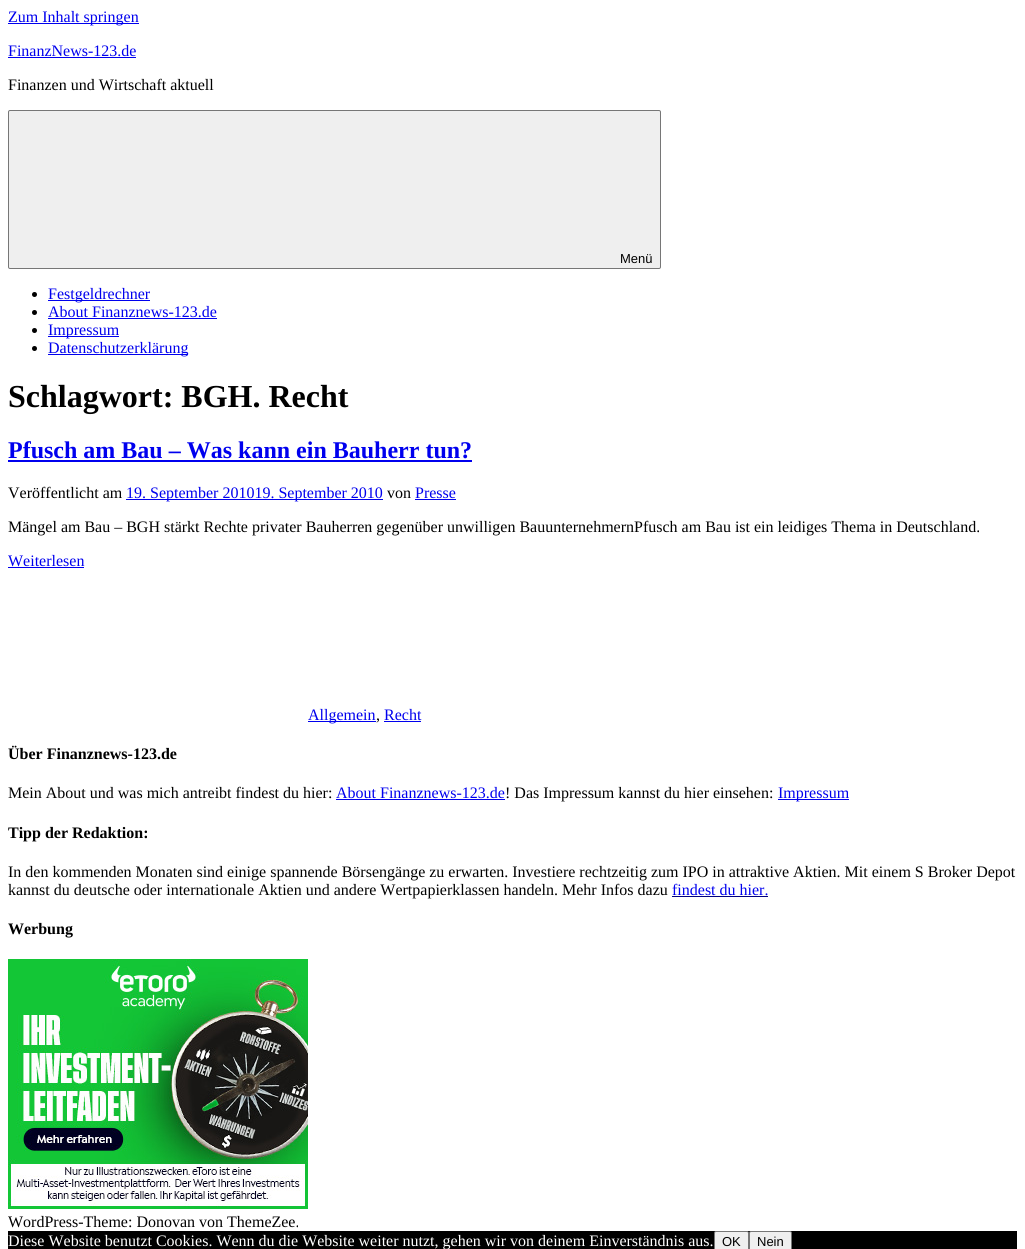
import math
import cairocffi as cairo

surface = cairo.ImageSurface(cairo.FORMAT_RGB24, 1025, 1249)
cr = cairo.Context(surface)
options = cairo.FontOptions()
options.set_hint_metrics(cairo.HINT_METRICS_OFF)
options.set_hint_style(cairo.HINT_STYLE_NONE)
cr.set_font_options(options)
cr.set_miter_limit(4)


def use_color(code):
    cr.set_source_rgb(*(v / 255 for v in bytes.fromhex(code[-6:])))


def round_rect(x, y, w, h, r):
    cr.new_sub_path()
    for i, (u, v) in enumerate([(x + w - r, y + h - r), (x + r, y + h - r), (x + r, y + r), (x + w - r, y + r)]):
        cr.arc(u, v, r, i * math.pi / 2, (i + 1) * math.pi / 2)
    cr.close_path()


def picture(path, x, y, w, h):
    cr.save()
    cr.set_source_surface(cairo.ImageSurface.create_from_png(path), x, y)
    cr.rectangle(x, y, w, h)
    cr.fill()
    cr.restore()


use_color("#ffffff")
cr.paint()
use_color("#0000ee")
cr.rectangle(8, 23, 131, 1)
cr.fill()
cr.select_font_face("Liberation Serif")
cr.set_font_size(16)
cr.move_to(8, 22)
cr.show_text("Zum Inhalt springen")
cr.move_to(8, 56)
cr.show_text("FinanzNews-123.de")
cr.rectangle(8, 57, 128, 1)
cr.fill()
use_color("#000000")
cr.move_to(8, 90)
cr.show_text("Finanzen und Wirtschaft aktuell")
use_color("#efefef")
round_rect(8.5, 110.5, 652, 158, 1.5)
cr.fill_preserve()
use_color("#767676")
cr.set_line_width(1)
cr.stroke()
cr.select_font_face("Liberation Sans")
cr.set_font_size(13)
use_color("#000000")
cr.move_to(620, 263)
cr.show_text("Menü")
cr.new_path()
cr.arc(34.5, 294.5, 2.5, 0, 2 * math.pi)
cr.fill()
use_color("#0000ee")
cr.rectangle(48, 300, 102, 1)
cr.fill()
cr.select_font_face("Liberation Serif")
cr.set_font_size(16)
cr.move_to(48, 299)
cr.show_text("Festgeldrechner")
use_color("#000000")
cr.new_path()
cr.arc(34.5, 312.5, 2.5, 0, 2 * math.pi)
cr.fill()
use_color("#0000ee")
cr.move_to(48, 317)
cr.show_text("About Finanznews-123.de")
cr.rectangle(48, 318, 169, 1)
cr.fill()
use_color("#000000")
cr.arc(34.5, 330.5, 2.5, 0, 2 * math.pi)
cr.fill()
use_color("#0000ee")
cr.rectangle(48, 336, 71, 1)
cr.fill()
cr.move_to(48, 335)
cr.show_text("Impressum")
use_color("#000000")
cr.new_path()
cr.arc(34.5, 348.5, 2.5, 0, 2 * math.pi)
cr.fill()
use_color("#0000ee")
cr.rectangle(48, 354, 140, 1)
cr.fill()
cr.move_to(48, 353)
cr.show_text("Datenschutzerklärung")
cr.select_font_face("Liberation Serif", cairo.FONT_SLANT_NORMAL, cairo.FONT_WEIGHT_BOLD)
cr.set_font_size(32)
use_color("#000000")
cr.move_to(8, 407)
cr.show_text("Schlagwort: BGH. Recht")
cr.set_font_size(24)
use_color("#0000ee")
cr.move_to(8, 458)
cr.show_text("Pfusch am Bau – Was kann ein Bauherr tun?")
cr.rectangle(8, 460, 464, 2)
cr.fill()
cr.select_font_face("Liberation Serif")
cr.set_font_size(16)
use_color("#000000")
cr.move_to(8, 498)
cr.show_text("Veröffentlicht am")
use_color("#0000ee")
cr.rectangle(126, 499, 257, 1)
cr.fill()
cr.move_to(126, 498)
cr.show_text("19. September 201019. September 2010")
use_color("#000000")
cr.move_to(387, 498)
cr.show_text("von")
use_color("#0000ee")
cr.move_to(415, 498)
cr.show_text("Presse")
cr.rectangle(415, 499, 41, 1)
cr.fill()
use_color("#000000")
cr.move_to(8, 532)
cr.show_text("Mängel am Bau – BGH stärkt Rechte privater Bauherren gegenüber unwilligen BauunternehmernPfusch am Bau ist ein leidiges Thema in Deutschland.")
use_color("#0000ee")
cr.move_to(8, 566)
cr.show_text("Weiterlesen")
cr.rectangle(8, 567, 76, 1)
cr.fill()
cr.rectangle(308, 721, 68, 1)
cr.fill()
cr.move_to(308, 720)
cr.show_text("Allgemein")
use_color("#000000")
cr.move_to(376, 720)
cr.show_text(",")
use_color("#0000ee")
cr.move_to(384, 720)
cr.show_text("Recht")
cr.rectangle(384, 721, 37, 1)
cr.fill()
cr.select_font_face("Liberation Serif", cairo.FONT_SLANT_NORMAL, cairo.FONT_WEIGHT_BOLD)
use_color("#000000")
cr.move_to(8, 759)
cr.show_text("Über Finanznews-123.de")
cr.select_font_face("Liberation Serif")
cr.move_to(8, 798)
cr.show_text("Mein About und was mich antreibt findest du hier:")
use_color("#0000ee")
cr.move_to(336, 798)
cr.show_text("About Finanznews-123.de")
cr.rectangle(336, 799, 169, 1)
cr.fill()
use_color("#000000")
cr.move_to(505, 798)
cr.show_text("! Das Impressum kannst du hier einsehen:")
use_color("#0000ee")
cr.rectangle(778, 799, 71, 1)
cr.fill()
cr.move_to(778, 798)
cr.show_text("Impressum")
cr.select_font_face("Liberation Serif", cairo.FONT_SLANT_NORMAL, cairo.FONT_WEIGHT_BOLD)
use_color("#000000")
cr.move_to(8, 838)
cr.show_text("Tipp der Redaktion:")
cr.select_font_face("Liberation Serif")
cr.move_to(8, 877)
cr.show_text("In den kommenden Monaten sind einige spannende Börsengänge zu erwarten. Investiere rechtzeitig zum IPO in attraktive Aktien. Mit einem S Broker Depot")
cr.move_to(8, 895)
cr.show_text("kannst du deutsche oder internationale Aktien und andere Wertpapierklassen handeln. Mehr Infos dazu")
use_color("#0000ee")
cr.move_to(672, 895)
cr.show_text("findest du hier.")
use_color("#000080")
cr.rectangle(672, 896, 96, 1)
cr.fill()
cr.select_font_face("Liberation Serif", cairo.FONT_SLANT_NORMAL, cairo.FONT_WEIGHT_BOLD)
use_color("#000000")
cr.move_to(8, 934)
cr.show_text("Werbung")
picture("img1.png", 8, 959, 300, 250)
cr.select_font_face("Liberation Serif")
cr.move_to(8, 1227)
cr.show_text("WordPress-Theme: Donovan von ThemeZee.")
cr.rectangle(8, 1231, 1009, 18)
cr.fill()
use_color("#ffffff")
cr.move_to(8, 1246)
cr.show_text("Diese Website benutzt Cookies. Wenn du die Website weiter nutzt, gehen wir von deinem Einverständnis aus.")
use_color("#efefef")
round_rect(714.5, 1231.5, 34, 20, 1.5)
cr.fill_preserve()
use_color("#767676")
cr.stroke()
cr.select_font_face("Liberation Sans")
cr.set_font_size(13)
use_color("#000000")
cr.move_to(722, 1246)
cr.show_text("OK")
use_color("#efefef")
round_rect(749.5, 1231.5, 42, 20, 1.5)
cr.fill_preserve()
use_color("#767676")
cr.stroke()
use_color("#000000")
cr.move_to(757, 1246)
cr.show_text("Nein")
surface.write_to_png("result.png")
